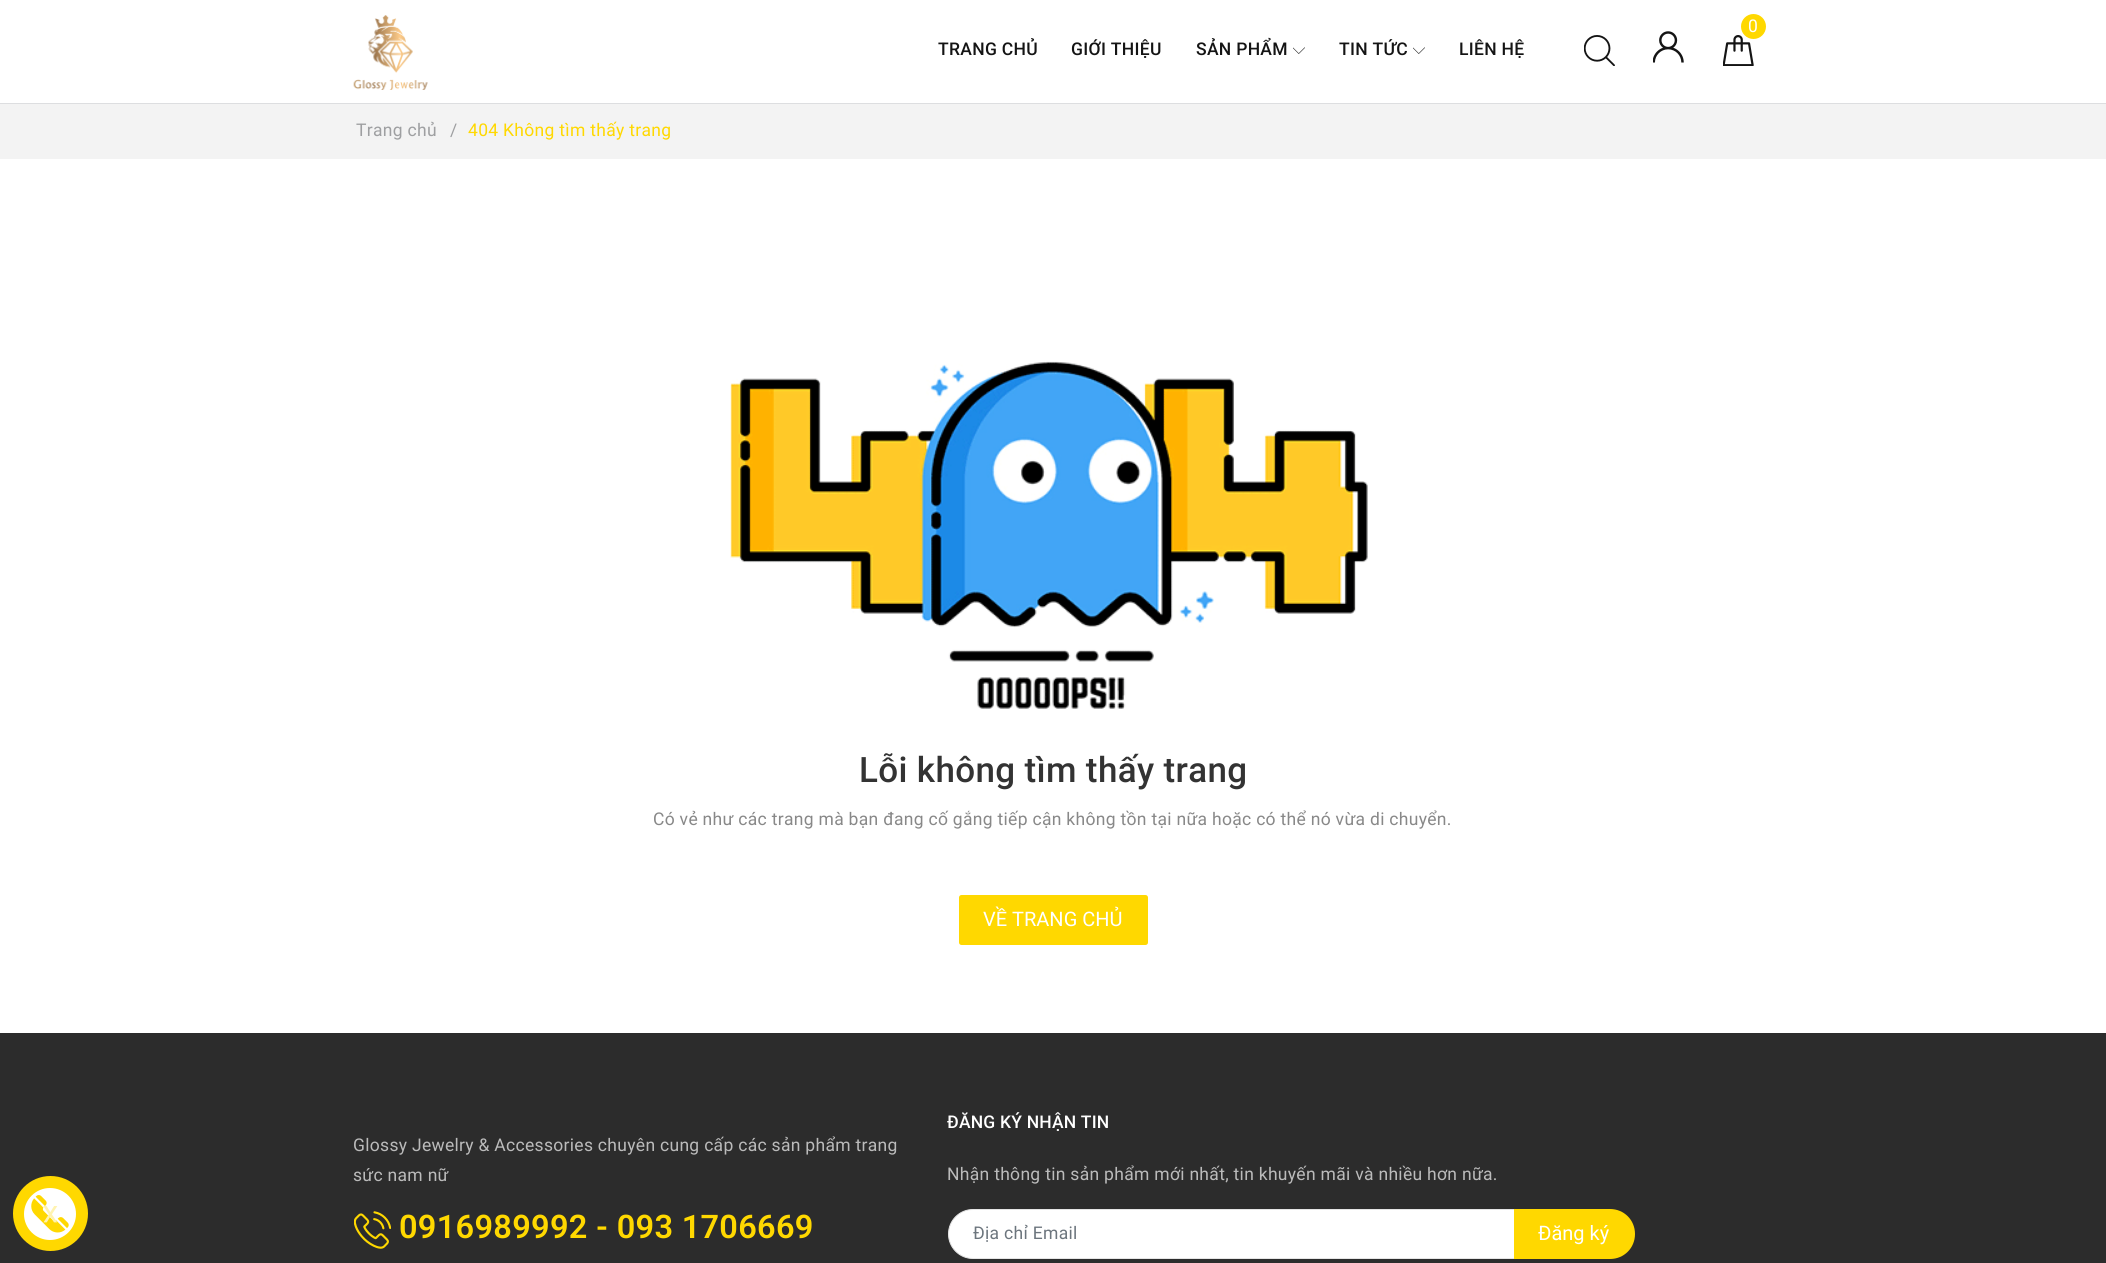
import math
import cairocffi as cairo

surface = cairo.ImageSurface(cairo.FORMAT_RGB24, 2106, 1263)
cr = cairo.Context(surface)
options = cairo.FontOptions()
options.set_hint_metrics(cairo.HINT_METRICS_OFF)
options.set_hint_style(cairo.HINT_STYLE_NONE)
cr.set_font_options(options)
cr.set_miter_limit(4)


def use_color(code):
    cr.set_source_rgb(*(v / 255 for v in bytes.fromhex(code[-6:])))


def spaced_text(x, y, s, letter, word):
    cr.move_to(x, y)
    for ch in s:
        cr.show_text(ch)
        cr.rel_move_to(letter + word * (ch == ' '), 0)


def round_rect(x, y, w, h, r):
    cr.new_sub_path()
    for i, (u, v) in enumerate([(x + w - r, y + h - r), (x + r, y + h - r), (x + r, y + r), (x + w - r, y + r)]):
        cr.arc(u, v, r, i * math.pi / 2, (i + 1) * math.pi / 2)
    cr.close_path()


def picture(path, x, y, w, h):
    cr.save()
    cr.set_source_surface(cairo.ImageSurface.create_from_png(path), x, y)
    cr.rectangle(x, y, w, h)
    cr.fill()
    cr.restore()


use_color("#ffffff")
cr.paint()
use_color("#dddee0")
cr.rectangle(0, 103, 2106, 1)
cr.fill()
picture("img1.png", 353, 15, 75, 75)
picture("img2.png", 1723, 35, 31, 31)
use_color("#ffd800")
cr.arc(1753.5, 26.5, 12.5, 0, 2 * math.pi)
cr.fill()
cr.select_font_face("Roboto")
cr.set_font_size(17.5)
use_color("#ffffff")
spaced_text(1748, 32, "0", 0.3, 0)
picture("img3.png", 1584, 35, 31, 31)
picture("img4.png", 1653, 31, 31, 32)
cr.select_font_face("Roboto Medium")
use_color("#141414")
spaced_text(938, 55, "TRANG CHỦ", 0.3, 0)
spaced_text(1071, 55, "GIỚI THIỆU", 0.3, 0)
spaced_text(1196, 55, "SẢN PHẨM", 0.3, 0)
picture("img5.png", 1293, 47, 12, 7)
spaced_text(1339, 55, "TIN TỨC", 0.3, 0)
picture("img5.png", 1413, 47, 12, 7)
spaced_text(1459, 55, "LIÊN HỆ", 0.3, 0)
use_color("#f3f3f3")
cr.rectangle(0, 104, 2106, 55)
cr.fill()
cr.select_font_face("Roboto")
use_color("#9e9fa1")
spaced_text(356, 136, "Trang chủ", 0.3, 0)
spaced_text(450, 136, "/", 0.3, 0)
use_color("#ffd800")
spaced_text(468, 136, "404 Không tìm thấy trang", 0.3, 0)
picture("img6.png", 730, 361, 638, 348)
cr.select_font_face("Roboto Medium")
cr.set_font_size(35)
use_color("#333333")
spaced_text(859, 782, "Lỗi không tìm thấy trang", 0.35, 0)
cr.select_font_face("Roboto")
cr.set_font_size(17.5)
use_color("#888888")
spaced_text(653, 825, "Có vẻ như các trang mà bạn đang cố gắng tiếp cận không tồn tại nữa hoặc có thể nó vừa di chuyển.", 0.3, 0)
use_color("#ffd800")
round_rect(959, 895, 189, 50, 2.5)
cr.fill()
cr.set_font_size(20)
use_color("#ffffff")
cr.move_to(983, 926)
cr.show_text("VỀ TRANG CHỦ")
use_color("#2c2c2c")
cr.rectangle(0, 1033, 2106, 230)
cr.fill()
use_color("#ffd800")
cr.arc(50.5, 1213.5, 37.5, 0, 2 * math.pi)
cr.fill()
use_color("#ffffff")
cr.arc(50, 1214, 26, 0, 2 * math.pi)
cr.fill()
picture("img7.png", 31, 1195, 38, 38)
cr.set_font_size(31)
use_color("#fff3b1")
cr.save()
cr.translate(58, 1206)
cr.rotate(180 * math.pi / 180)
spaced_text(0, 0, "x", 0.3, 0)
cr.restore()
cr.set_font_size(17.5)
use_color("#bbbbbb")
spaced_text(353, 1151, "Glossy Jewelry & Accessories chuyên cung cấp các sản phẩm trang", 0.3, 0)
spaced_text(353, 1181, "sức nam nữ", 0.3, 0)
picture("img8.png", 354, 1211, 37, 38)
cr.select_font_face("Roboto SemiBold")
cr.set_font_size(32.5)
use_color("#ffd800")
spaced_text(399, 1238, "0916989992 - 093 1706669", 0.3, 0)
cr.select_font_face("Roboto Medium")
cr.set_font_size(17.5)
use_color("#ffffff")
spaced_text(947, 1128, "ĐĂNG KÝ NHẬN TIN", 0.2, 0)
cr.select_font_face("Roboto")
use_color("#bbbbbb")
spaced_text(947, 1180, "Nhận thông tin sản phẩm mới nhất, tin khuyến mãi và nhiều hơn nữa.", 0.3, 0)
use_color("#ffffff")
cr.new_path()
cr.move_to(973, 1209.5)
cr.line_to(1514.5, 1209.5)
cr.line_to(1514.5, 1258.5)
cr.line_to(973, 1258.5)
cr.curve_to(959.5, 1258.5, 948.5, 1247.5, 948.5, 1234)
cr.curve_to(948.5, 1220.5, 959.5, 1209.5, 973, 1209.5)
cr.close_path()
cr.fill_preserve()
use_color("#e5e5e5")
cr.set_line_width(1)
cr.stroke()
use_color("#6c757d")
spaced_text(973, 1239, "Địa chỉ Email", 0.3, 0)
use_color("#ffd800")
cr.new_path()
cr.move_to(1514, 1209)
cr.line_to(1610, 1209)
cr.curve_to(1624, 1209, 1635, 1220, 1635, 1234)
cr.curve_to(1635, 1248, 1624, 1259, 1610, 1259)
cr.line_to(1514, 1259)
cr.close_path()
cr.fill()
cr.set_font_size(20)
use_color("#ffffff")
cr.move_to(1538, 1240)
cr.show_text("Đăng ký")
surface.write_to_png("result.png")
